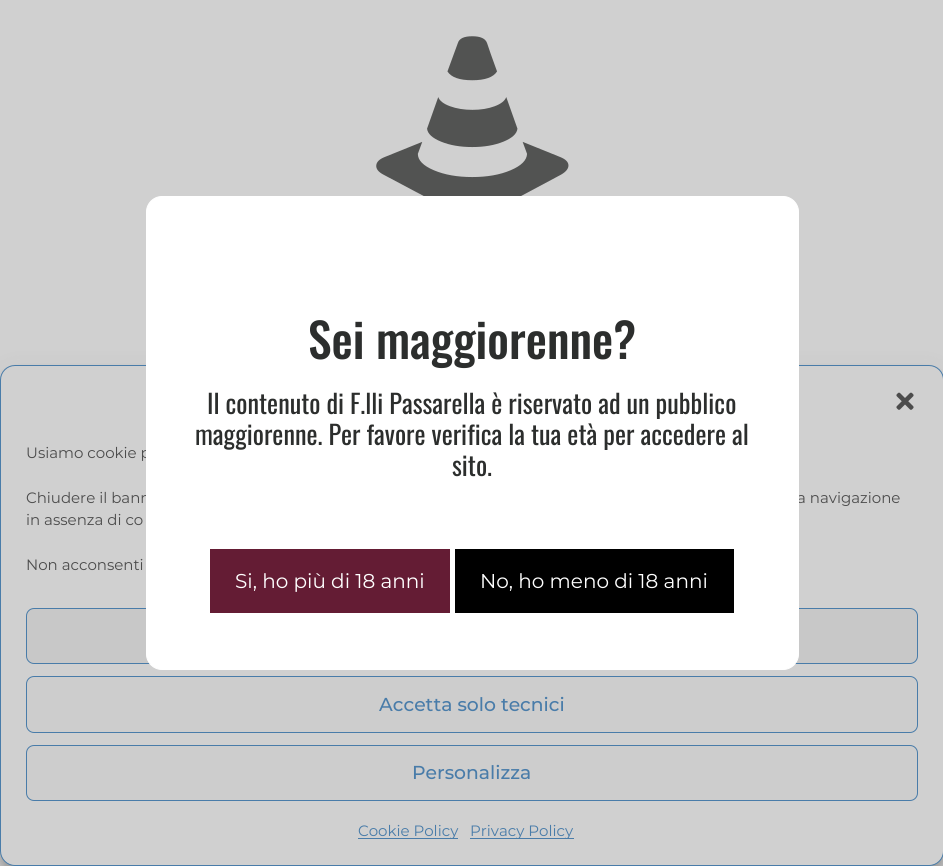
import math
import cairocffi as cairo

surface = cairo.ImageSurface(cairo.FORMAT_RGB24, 943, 866)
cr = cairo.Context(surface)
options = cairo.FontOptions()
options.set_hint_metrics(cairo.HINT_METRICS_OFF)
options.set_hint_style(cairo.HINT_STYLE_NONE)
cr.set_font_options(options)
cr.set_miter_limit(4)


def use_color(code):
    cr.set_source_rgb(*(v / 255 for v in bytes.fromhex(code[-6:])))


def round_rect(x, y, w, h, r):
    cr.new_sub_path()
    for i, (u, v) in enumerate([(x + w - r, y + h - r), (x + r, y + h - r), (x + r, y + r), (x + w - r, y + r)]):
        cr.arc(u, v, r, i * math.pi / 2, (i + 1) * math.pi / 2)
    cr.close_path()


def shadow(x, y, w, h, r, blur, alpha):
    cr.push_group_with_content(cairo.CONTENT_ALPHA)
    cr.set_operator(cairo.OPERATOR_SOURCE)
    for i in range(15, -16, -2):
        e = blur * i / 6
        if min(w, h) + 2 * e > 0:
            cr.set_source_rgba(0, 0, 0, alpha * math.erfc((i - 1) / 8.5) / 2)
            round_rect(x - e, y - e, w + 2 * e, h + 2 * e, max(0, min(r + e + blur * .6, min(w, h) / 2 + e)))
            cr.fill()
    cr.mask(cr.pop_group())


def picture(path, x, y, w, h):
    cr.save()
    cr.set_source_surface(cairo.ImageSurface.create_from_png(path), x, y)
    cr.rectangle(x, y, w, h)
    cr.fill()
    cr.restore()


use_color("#d0d0d0")
cr.paint()
picture("img1.png", 376, 36, 193, 160)
use_color("#373737")
shadow(0, 373, 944, 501, 15, 4, 0.23)
shadow(0, 378, 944, 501, 15, 12.5, 0.19)
use_color("#d0d0d0")
round_rect(0.5, 365.5, 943, 500, 14.5)
cr.fill_preserve()
use_color("#497ca9")
cr.set_line_width(1)
cr.stroke()
cr.select_font_face("Montserrat")
cr.set_font_size(15)
use_color("#4c4c4c")
cr.move_to(26, 458)
cr.show_text("Usiamo cookie p")
cr.move_to(26, 503)
cr.show_text("Chiudere il bann")
cr.move_to(797, 503)
cr.show_text("a navigazione")
use_color("#c8c8c8")
round_rect(26.5, 608.5, 891, 55, 7.5)
cr.fill_preserve()
use_color("#497ca9")
cr.stroke()
use_color("#ffffff")
round_rect(146.5, 196.5, 652, 473, 15.5)
cr.fill_preserve()
cr.stroke()
cr.select_font_face("Oswald Medium")
cr.set_font_size(47.5)
use_color("#2c2e2d")
cr.move_to(308, 359)
cr.show_text("Sei maggiorenne?")
cr.select_font_face("Oswald")
cr.set_font_size(26.25)
cr.move_to(207, 414)
cr.show_text("Il contenuto di F.lli Passarella è riservato ad un pubblico")
cr.move_to(195, 445)
cr.show_text("maggiorenne. Per favore verifica la tua età per accedere al")
cr.move_to(452, 476)
cr.show_text("sito.")
use_color("#641c34")
cr.rectangle(210, 549, 240, 64)
cr.fill()
cr.select_font_face("Montserrat")
cr.set_font_size(20)
use_color("#ffffff")
cr.move_to(235, 588)
cr.show_text("Si, ho più di 18 anni")
use_color("#000000")
cr.rectangle(455, 549, 279, 64)
cr.fill()
use_color("#ffffff")
cr.move_to(480, 588)
cr.show_text("No, ho meno di 18 anni")
picture("img2.png", 896, 392, 18, 18)
cr.set_font_size(15)
use_color("#4c4c4c")
cr.move_to(26, 525)
cr.show_text("in assenza di co")
cr.move_to(26, 570)
cr.show_text("Non acconsenti")
use_color("#cdcdcd")
round_rect(26.5, 676.5, 891, 56, 7.5)
cr.fill_preserve()
use_color("#497ca9")
cr.stroke()
cr.select_font_face("Montserrat Medium")
cr.set_font_size(18.75)
cr.move_to(379, 711)
cr.show_text("Accetta solo tecnici")
use_color("#cdcdcd")
round_rect(26.5, 745.5, 891, 55, 7.5)
cr.fill_preserve()
use_color("#497ca9")
cr.stroke()
cr.move_to(412, 779)
cr.show_text("Personalizza")
cr.rectangle(358, 838, 100, 1)
cr.fill()
cr.select_font_face("Montserrat")
cr.set_font_size(15)
cr.move_to(358, 836)
cr.show_text("Cookie Policy")
cr.rectangle(470, 838, 104, 1)
cr.fill()
cr.move_to(470, 836)
cr.show_text("Privacy Policy")
surface.write_to_png("result.png")
